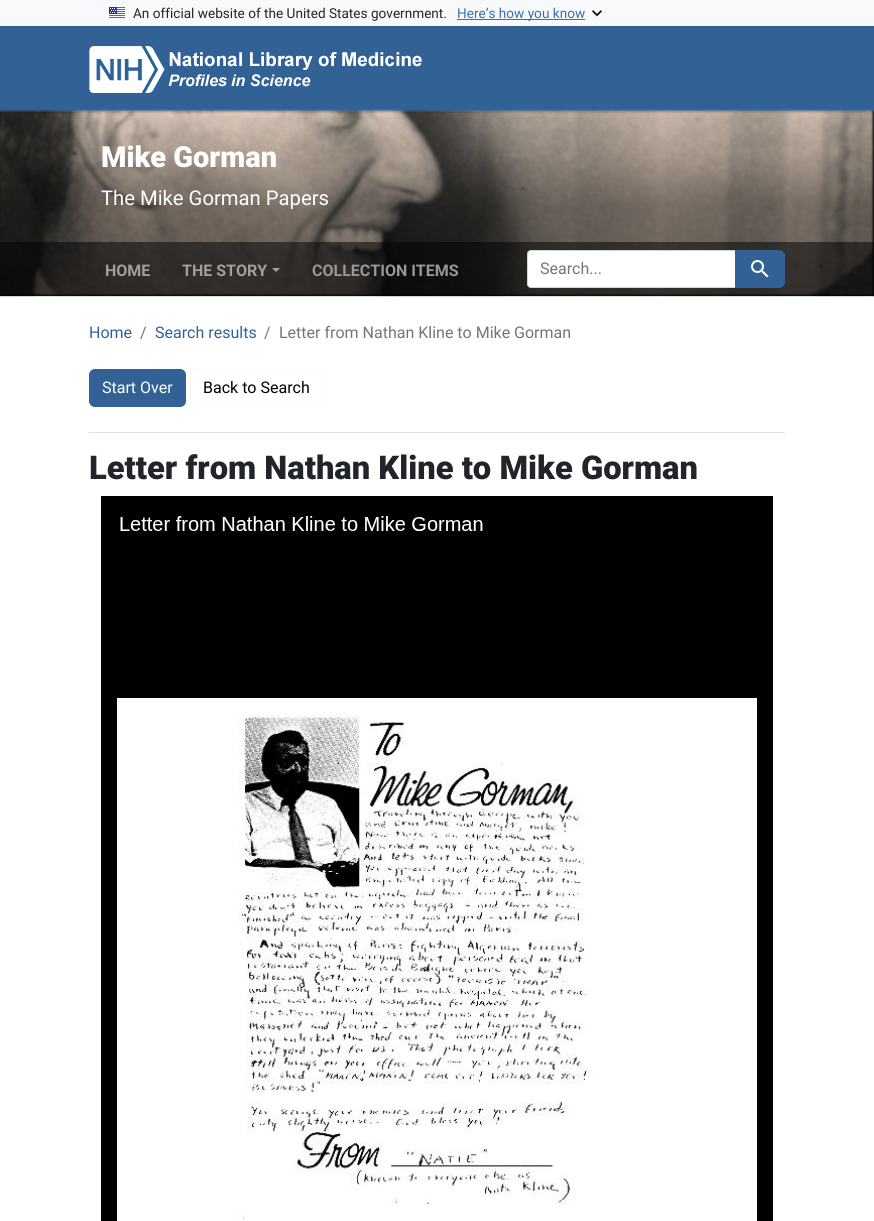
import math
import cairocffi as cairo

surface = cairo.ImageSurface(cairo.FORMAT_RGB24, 874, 1221)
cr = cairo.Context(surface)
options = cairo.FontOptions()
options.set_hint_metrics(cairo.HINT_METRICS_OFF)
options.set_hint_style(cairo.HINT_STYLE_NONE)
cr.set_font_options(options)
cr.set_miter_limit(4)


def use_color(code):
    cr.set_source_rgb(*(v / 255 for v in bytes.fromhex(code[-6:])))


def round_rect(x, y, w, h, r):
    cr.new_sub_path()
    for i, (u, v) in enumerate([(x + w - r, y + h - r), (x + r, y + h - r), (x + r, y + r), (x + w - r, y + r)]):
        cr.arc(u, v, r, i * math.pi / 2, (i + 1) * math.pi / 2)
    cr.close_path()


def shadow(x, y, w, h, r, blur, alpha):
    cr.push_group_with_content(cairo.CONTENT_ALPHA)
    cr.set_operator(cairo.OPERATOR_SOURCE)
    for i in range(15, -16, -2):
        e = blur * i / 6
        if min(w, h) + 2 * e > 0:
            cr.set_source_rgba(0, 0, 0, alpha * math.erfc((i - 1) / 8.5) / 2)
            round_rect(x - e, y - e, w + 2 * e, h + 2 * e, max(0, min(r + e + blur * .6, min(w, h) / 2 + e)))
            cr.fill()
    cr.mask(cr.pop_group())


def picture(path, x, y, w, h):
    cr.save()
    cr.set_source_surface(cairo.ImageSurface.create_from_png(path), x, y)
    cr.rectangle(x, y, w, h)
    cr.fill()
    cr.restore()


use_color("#ffffff")
cr.paint()
use_color("#f8f9fa")
cr.rectangle(0, 0, 874, 26)
cr.fill()
picture("img1.png", 109, 7, 16, 11)
cr.select_font_face("Roboto")
cr.set_font_size(13.6)
use_color("#212529")
cr.move_to(133, 18)
cr.show_text("An official website of the United States government.")
use_color("#376faa")
cr.rectangle(457, 19, 128, 1)
cr.fill()
cr.move_to(457, 18)
cr.show_text("Here’s how you know")
picture("img2.png", 592, 10, 10, 7)
use_color("#326295")
cr.rectangle(0, 26, 874, 86)
cr.fill()
picture("img3.png", 89, 46, 333, 47)
use_color("#000000")
cr.rectangle(0, 112, 874, 184)
cr.fill()
use_color("#dee2e6")
cr.rectangle(0, 296, 874, 1)
cr.fill()
picture("img4.png", 0, 109, 874, 188)
use_color("#000000")
shadow(873, 111, 1, 184, 0, 1, 1)
gradient = cairo.LinearGradient(437, 112, 437, 296)
gradient.add_color_stop_rgba(0, 0, 0, 0, 0)
gradient.add_color_stop_rgba(0.5, 0, 0, 0, 0.4)
gradient.add_color_stop_rgba(1, 0, 0, 0, 0.5)
cr.set_source(gradient)
cr.rectangle(0, 117, 874, 179)
cr.fill()
cr.select_font_face("Roboto Black")
cr.set_font_size(29)
use_color("#ffffff")
cr.move_to(101, 167)
cr.show_text("Mike Gorman")
cr.select_font_face("Roboto")
cr.set_font_size(20.25)
cr.move_to(101, 205)
cr.show_text("The Mike Gorman Papers")
cr.set_source_rgba(0, 0, 0, 0.5)
cr.rectangle(0, 242, 874, 54)
cr.fill()
cr.select_font_face("Roboto", cairo.FONT_SLANT_NORMAL, cairo.FONT_WEIGHT_BOLD)
cr.set_font_size(16)
use_color("#a2a09e")
cr.move_to(105, 276)
cr.show_text("HOME")
cr.move_to(182, 276)
cr.show_text("THE STORY")
cr.set_source_rgba(1, 1, 1, 0.55)
cr.new_path()
cr.move_to(272, 268)
cr.line_to(280, 268)
cr.line_to(276, 272)
cr.close_path()
cr.fill()
use_color("#989897")
cr.move_to(312, 276)
cr.show_text("COLLECTION ITEMS")
use_color("#ffffff")
cr.new_path()
cr.move_to(531, 250.5)
cr.line_to(735.5, 250.5)
cr.line_to(735.5, 287.5)
cr.line_to(531, 287.5)
cr.curve_to(529, 287.5, 527.5, 286, 527.5, 284)
cr.line_to(527.5, 254)
cr.curve_to(527.5, 252, 529, 250.5, 531, 250.5)
cr.close_path()
cr.fill_preserve()
use_color("#ced4da")
cr.set_line_width(1)
cr.stroke()
cr.select_font_face("Roboto")
use_color("#757575")
cr.move_to(540, 274)
cr.show_text("Search...")
use_color("#326295")
cr.new_path()
cr.move_to(735.5, 250.5)
cr.line_to(779, 250.5)
cr.curve_to(782, 250.5, 784.5, 253, 784.5, 256)
cr.line_to(784.5, 282)
cr.curve_to(784.5, 285, 782, 287.5, 779, 287.5)
cr.line_to(735.5, 287.5)
cr.close_path()
cr.fill_preserve()
cr.stroke()
picture("img5.png", 751, 260, 18, 18)
cr.move_to(89, 338)
cr.show_text("Home")
use_color("#757575")
cr.move_to(140, 338)
cr.show_text("/")
use_color("#326295")
cr.move_to(155, 338)
cr.show_text("Search results")
use_color("#757575")
cr.move_to(264, 338)
cr.show_text("/")
cr.move_to(279, 338)
cr.show_text("Letter from Nathan Kline to Mike Gorman")
use_color("#326295")
round_rect(89.5, 369.5, 96, 37, 5.5)
cr.fill_preserve()
cr.stroke()
use_color("#ffffff")
cr.move_to(102, 393)
cr.show_text("Start Over")
round_rect(190.5, 369.5, 131, 37, 5.5)
use_color("#f8f9fa")
cr.stroke()
use_color("#000000")
cr.move_to(203, 393)
cr.show_text("Back to Search")
use_color("#dee2e6")
cr.rectangle(89, 432, 696, 1)
cr.fill()
cr.select_font_face("Roboto Black")
cr.set_font_size(32.7)
use_color("#212529")
cr.move_to(89, 479)
cr.show_text("Letter from Nathan Kline to Mike Gorman")
picture("img6.png", 101, 496, 672, 725)
surface.write_to_png("result.png")
